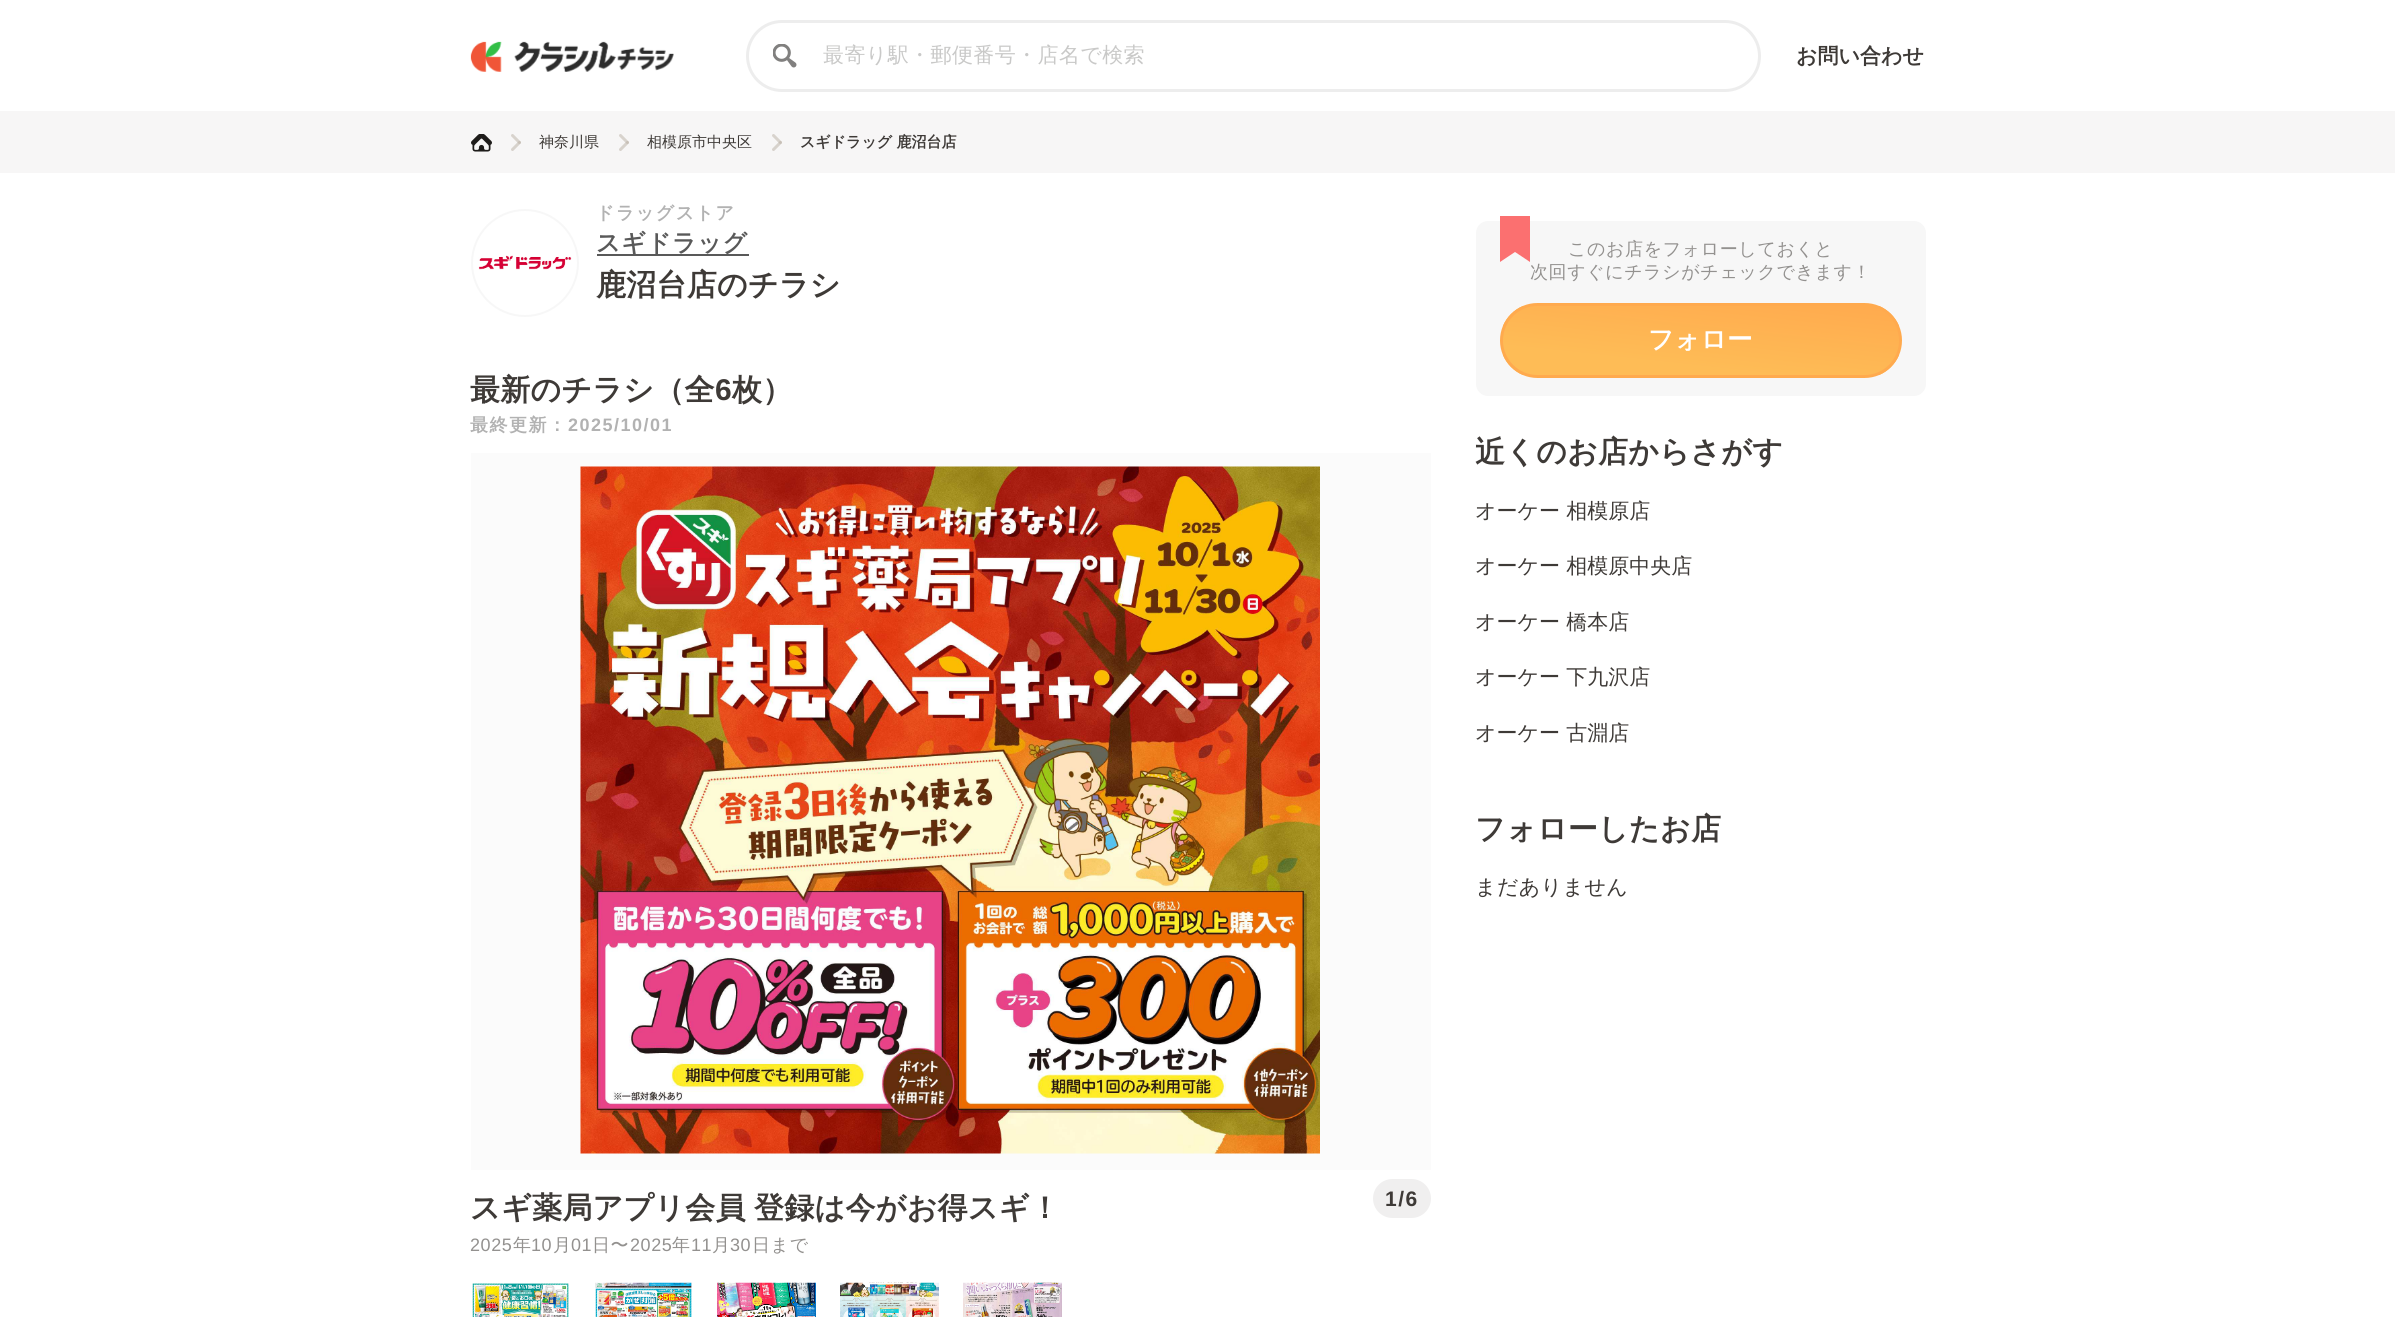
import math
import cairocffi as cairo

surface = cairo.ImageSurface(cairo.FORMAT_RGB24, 2395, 1317)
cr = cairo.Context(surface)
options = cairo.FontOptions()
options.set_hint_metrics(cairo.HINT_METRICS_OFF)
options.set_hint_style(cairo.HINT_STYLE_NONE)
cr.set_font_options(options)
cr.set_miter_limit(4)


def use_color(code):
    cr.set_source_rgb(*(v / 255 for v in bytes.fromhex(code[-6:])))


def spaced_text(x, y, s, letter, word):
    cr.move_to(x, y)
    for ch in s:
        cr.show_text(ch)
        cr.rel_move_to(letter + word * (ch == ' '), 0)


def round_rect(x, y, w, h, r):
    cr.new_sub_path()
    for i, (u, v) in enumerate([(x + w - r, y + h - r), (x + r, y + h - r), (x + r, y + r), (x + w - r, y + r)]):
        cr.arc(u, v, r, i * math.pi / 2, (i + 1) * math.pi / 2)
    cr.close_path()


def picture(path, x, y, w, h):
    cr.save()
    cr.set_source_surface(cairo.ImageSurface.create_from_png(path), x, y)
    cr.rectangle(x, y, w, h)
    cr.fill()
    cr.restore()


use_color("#ffffff")
cr.paint()
picture("img1.png", 470, 41, 204, 31)
round_rect(747.5, 21.5, 1012, 69, 34.5)
use_color("#ededed")
cr.set_line_width(3)
cr.stroke()
picture("img2.png", 773, 44, 24, 24)
cr.select_font_face("WenQuanYi Zen Hei Medium")
cr.set_font_size(21)
use_color("#c9c9c8")
spaced_text(823, 62, "最寄り駅・郵便番号・店名で検索", 0.4, 0)
cr.select_font_face("WenQuanYi Zen Hei", cairo.FONT_SLANT_NORMAL, cairo.FONT_WEIGHT_BOLD)
use_color("#3e3a37")
cr.move_to(1796, 63)
cr.show_text("お問い合わせ")
use_color("#f7f6f6")
cr.rectangle(0, 111, 2395, 62)
cr.fill()
picture("img3.png", 471, 134, 21, 18)
cr.new_path()
cr.move_to(519.5, 142.5)
cr.line_to(512.5, 135.5)
use_color("#d8d3cd")
cr.set_line_cap(cairo.LINE_CAP_ROUND)
cr.set_line_join(cairo.LINE_JOIN_ROUND)
cr.stroke()
cr.new_path()
cr.move_to(519.5, 142.5)
cr.line_to(512.5, 149.5)
cr.set_source_rgba(0.725, 0.686, 0.639, 0.5)
cr.stroke()
cr.select_font_face("WenQuanYi Zen Hei Medium")
cr.set_font_size(15)
use_color("#3e3a37")
cr.move_to(539, 147)
cr.show_text("神奈川県")
cr.new_path()
cr.move_to(627.5, 142.5)
cr.line_to(620.5, 135.5)
use_color("#d8d3cd")
cr.stroke()
cr.new_path()
cr.move_to(627.5, 142.5)
cr.line_to(620.5, 149.5)
cr.set_source_rgba(0.725, 0.686, 0.639, 0.5)
cr.stroke()
use_color("#3e3a37")
cr.move_to(647, 147)
cr.show_text("相模原市中央区")
cr.new_path()
cr.move_to(780.5, 142.5)
cr.line_to(773.5, 135.5)
use_color("#d8d3cd")
cr.stroke()
cr.new_path()
cr.move_to(780.5, 142.5)
cr.line_to(773.5, 149.5)
cr.set_source_rgba(0.725, 0.686, 0.639, 0.5)
cr.stroke()
cr.select_font_face("WenQuanYi Zen Hei", cairo.FONT_SLANT_NORMAL, cairo.FONT_WEIGHT_BOLD)
use_color("#3e3a37")
cr.move_to(800, 147)
cr.show_text("スギドラッグ 鹿沼台店")
picture("img4.png", 478, 255, 94, 15)
cr.arc(525, 263, 53, 0, 2 * math.pi)
use_color("#f7f7f7")
cr.set_line_width(2)
cr.set_line_cap(cairo.LINE_CAP_BUTT)
cr.set_line_join(cairo.LINE_JOIN_MITER)
cr.stroke()
cr.set_font_size(18)
use_color("#b2b2b2")
spaced_text(596, 219, "ドラッグストア", 1.5, 0)
use_color("#595959")
cr.rectangle(597, 254, 152, 2)
cr.fill()
cr.set_font_size(24)
spaced_text(596, 251, "スギドラッグ", 0.75, 0)
cr.set_font_size(30)
use_color("#3e3a37")
spaced_text(596, 295, "鹿沼台店のチラシ", 0.25, 0)
spaced_text(470, 400, "最新のチラシ（全", 0.25, 0)
cr.select_font_face("Liberation Sans", cairo.FONT_SLANT_NORMAL, cairo.FONT_WEIGHT_BOLD)
spaced_text(715, 400, "6", 0.25, 0)
cr.select_font_face("WenQuanYi Zen Hei", cairo.FONT_SLANT_NORMAL, cairo.FONT_WEIGHT_BOLD)
spaced_text(732, 400, "枚）", 0.25, 0)
cr.set_font_size(18)
use_color("#b2b2b2")
spaced_text(470, 431, "最終更新：", 1.5, 0)
cr.select_font_face("Liberation Sans", cairo.FONT_SLANT_NORMAL, cairo.FONT_WEIGHT_BOLD)
spaced_text(568, 431, "2025/10/01", 1.5, 0)
use_color("#fbfbfb")
cr.rectangle(471, 453, 960, 717)
cr.fill()
picture("img5.png", 580, 466, 740, 688)
cr.select_font_face("WenQuanYi Zen Hei", cairo.FONT_SLANT_NORMAL, cairo.FONT_WEIGHT_BOLD)
cr.set_font_size(30)
use_color("#3e3a37")
spaced_text(470, 1218, "スギ薬局アプリ会員 登録は今がお得スギ！", 0.25, -1)
use_color("#f0efef")
round_rect(1373, 1179, 58, 39, 19.5)
cr.fill()
cr.select_font_face("Liberation Sans", cairo.FONT_SLANT_NORMAL, cairo.FONT_WEIGHT_BOLD)
cr.set_font_size(21)
use_color("#3e3a37")
spaced_text(1385, 1206, "1/6", 1.5, 0)
cr.select_font_face("Liberation Sans")
cr.set_font_size(18)
use_color("#93918f")
spaced_text(470, 1251, "2025", 0.6, 0)
cr.select_font_face("WenQuanYi Zen Hei Medium")
spaced_text(513, 1251, "年", 0.6, 0)
cr.select_font_face("Liberation Sans")
spaced_text(531, 1251, "10", 0.6, 0)
cr.select_font_face("WenQuanYi Zen Hei Medium")
spaced_text(553, 1251, "月", 0.6, 0)
cr.select_font_face("Liberation Sans")
spaced_text(571, 1251, "01", 0.6, 0)
cr.select_font_face("WenQuanYi Zen Hei Medium")
spaced_text(592, 1251, "日〜", 0.6, 0)
cr.select_font_face("Liberation Sans")
spaced_text(630, 1251, "2025", 0.6, 0)
cr.select_font_face("WenQuanYi Zen Hei Medium")
spaced_text(672, 1251, "年", 0.6, 0)
cr.select_font_face("Liberation Sans")
spaced_text(691, 1251, "11", 0.6, 0)
cr.select_font_face("WenQuanYi Zen Hei Medium")
spaced_text(712, 1251, "月", 0.6, 0)
cr.select_font_face("Liberation Sans")
spaced_text(730, 1251, "30", 0.6, 0)
cr.select_font_face("WenQuanYi Zen Hei Medium")
spaced_text(752, 1251, "日まで", 0.6, 0)
picture("img6.png", 472, 1283, 97, 34)
picture("img7.png", 595, 1282, 97, 35)
picture("img8.png", 717, 1282, 99, 35)
picture("img9.png", 840, 1282, 99, 35)
picture("img10.png", 963, 1282, 99, 35)
use_color("#f7f7f7")
round_rect(1476, 221, 450, 175, 12)
cr.fill()
use_color("#fb7070")
cr.new_path()
cr.move_to(1500, 216)
cr.line_to(1530, 216)
cr.line_to(1530, 262)
cr.line_to(1515, 252)
cr.line_to(1500, 262)
cr.close_path()
cr.fill()
use_color("#93918f")
spaced_text(1568, 255, "このお店をフォローしておくと", 0.6, 0)
spaced_text(1530, 278, "次回すぐにチラシがチェックできます！", 0.6, 0)
cr.save()
round_rect(1500, 303, 402, 75, 37.5)
cr.clip()
gradient = cairo.LinearGradient(1707, 285, 1695, 396)
gradient.add_color_stop_rgba(0.01, 1, 0.667, 0.306, 1)
gradient.add_color_stop_rgba(0.74, 0.996, 0.737, 0.337, 1)
cr.set_source(gradient)
cr.rectangle(1503, 306, 396, 69)
cr.fill()
cr.restore()
round_rect(1501.5, 304.5, 399, 72, 36)
use_color("#ffaa4e")
cr.set_line_width(3)
cr.stroke()
cr.select_font_face("WenQuanYi Zen Hei", cairo.FONT_SLANT_NORMAL, cairo.FONT_WEIGHT_BOLD)
cr.set_font_size(25.5)
use_color("#ffffff")
spaced_text(1648, 348, "フォロー", 0.25, 0)
cr.set_font_size(30)
use_color("#3e3a37")
spaced_text(1475, 462, "近くのお店からさがす", 0.25, 0)
cr.select_font_face("WenQuanYi Zen Hei Medium")
cr.set_font_size(21)
cr.move_to(1475, 518)
cr.show_text("オーケー 相模原店")
cr.move_to(1475, 573)
cr.show_text("オーケー 相模原中央店")
cr.move_to(1475, 629)
cr.show_text("オーケー 橋本店")
cr.move_to(1475, 684)
cr.show_text("オーケー 下九沢店")
cr.move_to(1475, 740)
cr.show_text("オーケー 古淵店")
cr.select_font_face("WenQuanYi Zen Hei", cairo.FONT_SLANT_NORMAL, cairo.FONT_WEIGHT_BOLD)
cr.set_font_size(30)
spaced_text(1475, 839, "フォローしたお店", 0.25, 0)
cr.select_font_face("WenQuanYi Zen Hei Medium")
cr.set_font_size(21)
spaced_text(1475, 894, "まだありません", 0.4, 0)
surface.write_to_png("result.png")
